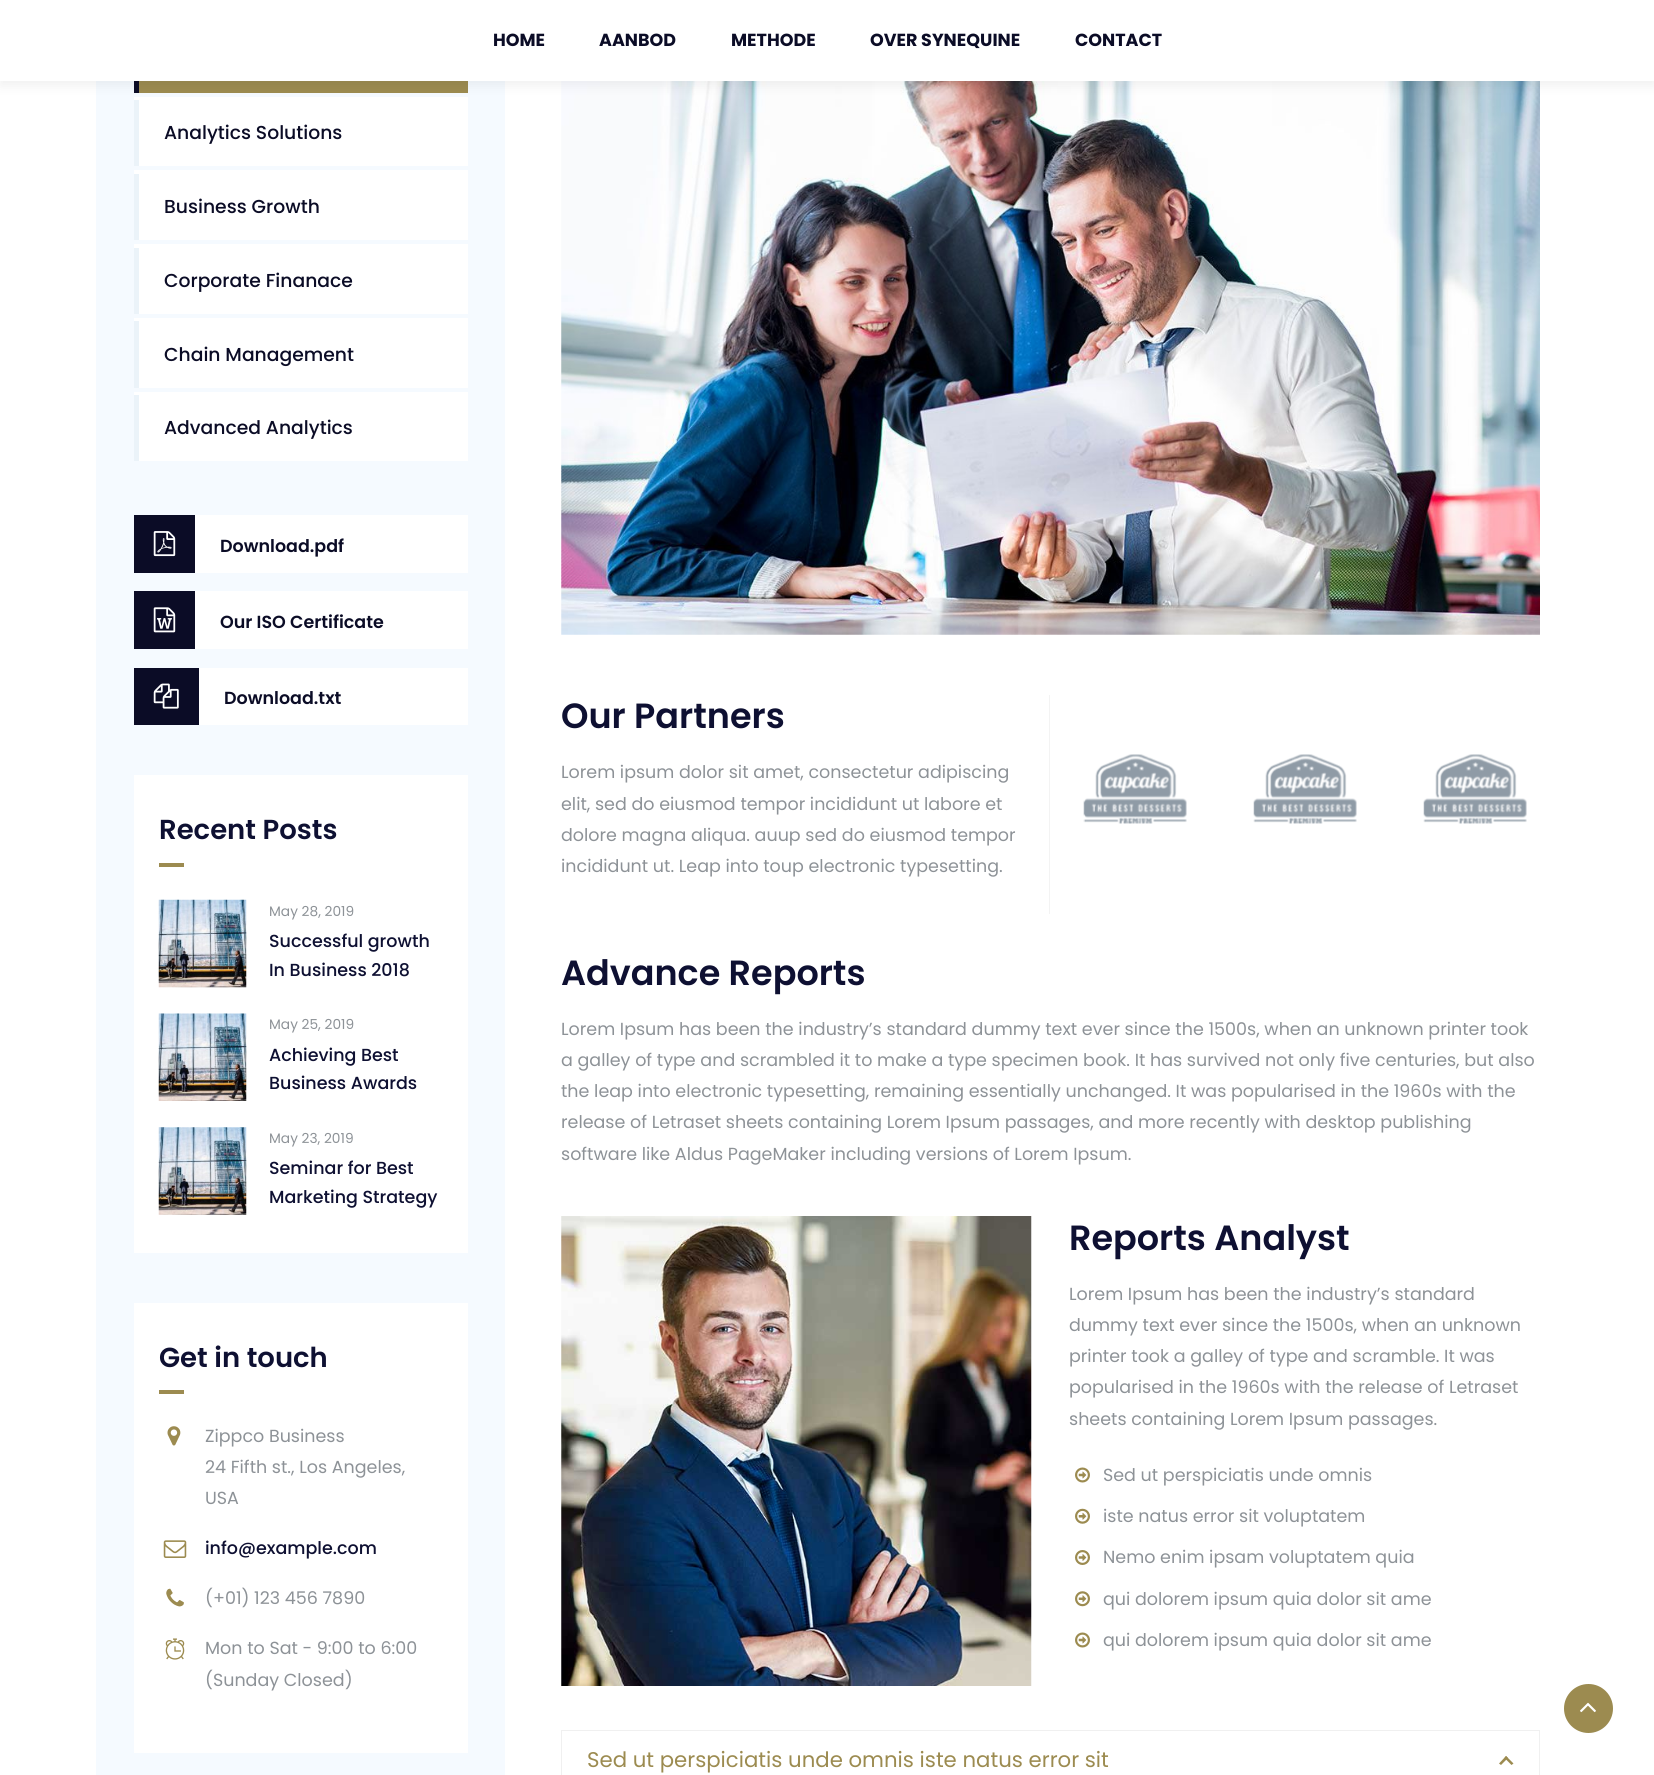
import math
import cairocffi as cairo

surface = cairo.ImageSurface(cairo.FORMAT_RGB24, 1654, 1775)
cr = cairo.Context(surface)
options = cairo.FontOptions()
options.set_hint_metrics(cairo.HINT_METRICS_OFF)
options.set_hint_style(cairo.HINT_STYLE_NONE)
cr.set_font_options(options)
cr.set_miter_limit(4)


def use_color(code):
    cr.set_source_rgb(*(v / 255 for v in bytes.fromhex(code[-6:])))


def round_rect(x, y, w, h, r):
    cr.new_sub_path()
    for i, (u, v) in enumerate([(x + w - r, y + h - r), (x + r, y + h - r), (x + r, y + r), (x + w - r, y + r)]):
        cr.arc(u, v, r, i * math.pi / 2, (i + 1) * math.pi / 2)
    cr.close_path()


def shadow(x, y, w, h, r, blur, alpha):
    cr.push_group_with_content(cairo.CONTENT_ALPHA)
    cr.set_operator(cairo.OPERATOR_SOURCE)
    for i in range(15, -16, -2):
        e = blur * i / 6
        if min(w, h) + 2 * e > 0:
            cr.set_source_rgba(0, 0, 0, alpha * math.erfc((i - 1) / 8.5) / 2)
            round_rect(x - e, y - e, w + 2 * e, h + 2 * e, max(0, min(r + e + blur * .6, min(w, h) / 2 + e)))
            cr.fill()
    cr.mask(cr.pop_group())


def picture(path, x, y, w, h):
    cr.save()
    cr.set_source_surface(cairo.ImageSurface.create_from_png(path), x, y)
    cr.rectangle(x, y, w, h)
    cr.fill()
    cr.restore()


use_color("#ffffff")
cr.paint()
use_color("#f5faff")
cr.rectangle(96, 81, 409, 1694)
cr.fill()
use_color("#ffffff")
cr.rectangle(134, 97, 334, 364)
cr.fill()
use_color("#0b0c26")
cr.rectangle(134, 81, 5, 12)
cr.fill()
use_color("#9c8b50")
cr.rectangle(139, 81, 329, 12)
cr.fill()
use_color("#ebf3f9")
cr.rectangle(134, 100, 5, 66)
cr.fill()
picture("img11.png", 561, 81, 979, 554)
use_color("#000000")
shadow(0, 5, 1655, 81, 0, 6, 0.06)
use_color("#ffffff")
cr.rectangle(0, 0, 1654, 81)
cr.fill()
cr.select_font_face("Poppins", cairo.FONT_SLANT_NORMAL, cairo.FONT_WEIGHT_BOLD)
cr.set_font_size(17.5)
use_color("#0b0c26")
cr.move_to(493, 46)
cr.show_text("HOME")
cr.move_to(599, 46)
cr.show_text("AANBOD")
cr.move_to(731, 46)
cr.show_text("METHODE")
cr.move_to(870, 46)
cr.show_text("OVER SYNEQUINE")
cr.move_to(1075, 46)
cr.show_text("CONTACT")
use_color("#f5faff")
cr.rectangle(134, 166, 334, 4)
cr.fill()
cr.select_font_face("Poppins Medium")
cr.set_font_size(18.75)
use_color("#0b0c26")
cr.move_to(164, 139)
cr.show_text("Analytics Solutions")
use_color("#f5faff")
cr.rectangle(134, 240, 334, 4)
cr.fill()
use_color("#ebf3f9")
cr.rectangle(134, 174, 5, 66)
cr.fill()
use_color("#0b0c26")
cr.move_to(164, 213)
cr.show_text("Business Growth")
use_color("#f5faff")
cr.rectangle(134, 314, 334, 4)
cr.fill()
use_color("#ebf3f9")
cr.rectangle(134, 248, 5, 66)
cr.fill()
use_color("#0b0c26")
cr.move_to(164, 287)
cr.show_text("Corporate Finanace")
use_color("#f5faff")
cr.rectangle(134, 388, 334, 4)
cr.fill()
use_color("#ebf3f9")
cr.rectangle(134, 321, 5, 67)
cr.fill()
use_color("#0b0c26")
cr.move_to(164, 361)
cr.show_text("Chain Management")
use_color("#ebf3f9")
cr.rectangle(134, 395, 5, 66)
cr.fill()
use_color("#0b0c26")
cr.move_to(164, 434)
cr.show_text("Advanced Analytics")
use_color("#ffffff")
cr.rectangle(195, 515, 273, 58)
cr.fill()
use_color("#0b0c26")
cr.rectangle(134, 515, 61, 58)
cr.fill()
picture("img1.png", 153, 531, 23, 26)
cr.select_font_face("Poppins SemiBold")
cr.set_font_size(17.5)
cr.move_to(220, 552)
cr.show_text("Download.pdf")
use_color("#ffffff")
cr.rectangle(195, 591, 273, 58)
cr.fill()
use_color("#0b0c26")
cr.rectangle(134, 591, 61, 58)
cr.fill()
picture("img2.png", 153, 607, 23, 26)
cr.move_to(220, 628)
cr.show_text("Our ISO Certificate")
use_color("#ffffff")
cr.rectangle(199, 668, 269, 57)
cr.fill()
use_color("#0b0c26")
cr.rectangle(134, 668, 65, 57)
cr.fill()
picture("img3.png", 153, 683, 26, 26)
cr.move_to(224, 704)
cr.show_text("Download.txt")
use_color("#ffffff")
cr.rectangle(134, 775, 334, 478)
cr.fill()
cr.set_font_size(27.5)
use_color("#0e1032")
cr.move_to(159, 839)
cr.show_text("Recent Posts")
use_color("#9c8b50")
cr.rectangle(159, 863, 25, 4)
cr.fill()
picture("img4.png", 158, 899, 89, 89)
cr.select_font_face("Poppins")
cr.set_font_size(13.75)
use_color("#8d9297")
cr.move_to(269, 916)
cr.show_text("May 28, 2019")
cr.select_font_face("Poppins Medium")
cr.set_font_size(17.5)
use_color("#0e1032")
cr.move_to(269, 947)
cr.show_text("Successful growth")
cr.move_to(269, 976)
cr.show_text("In Business 2018")
picture("img5.png", 158, 1013, 89, 88)
cr.select_font_face("Poppins")
cr.set_font_size(13.75)
use_color("#8d9297")
cr.move_to(269, 1029)
cr.show_text("May 25, 2019")
cr.select_font_face("Poppins Medium")
cr.set_font_size(17.5)
use_color("#0e1032")
cr.move_to(269, 1061)
cr.show_text("Achieving Best")
cr.move_to(269, 1089)
cr.show_text("Business Awards")
picture("img6.png", 158, 1127, 89, 88)
cr.select_font_face("Poppins")
cr.set_font_size(13.75)
use_color("#8d9297")
cr.move_to(269, 1143)
cr.show_text("May 23, 2019")
cr.select_font_face("Poppins Medium")
cr.set_font_size(17.5)
use_color("#0e1032")
cr.move_to(269, 1174)
cr.show_text("Seminar for Best")
cr.move_to(269, 1203)
cr.show_text("Marketing Strategy")
use_color("#ffffff")
cr.rectangle(134, 1303, 334, 450)
cr.fill()
cr.select_font_face("Poppins SemiBold")
cr.set_font_size(27.5)
use_color("#0e1032")
cr.move_to(159, 1367)
cr.show_text("Get in touch")
use_color("#9c8b50")
cr.rectangle(159, 1390, 25, 4)
cr.fill()
picture("img7.png", 167, 1426, 14, 20)
cr.select_font_face("Poppins")
cr.set_font_size(17.5)
use_color("#8d9297")
cr.move_to(205, 1442)
cr.show_text("Zippco Business")
cr.move_to(205, 1473)
cr.show_text("24 Fifth st., Los Angeles,")
cr.move_to(205, 1504)
cr.show_text("USA")
picture("img8.png", 163, 1540, 24, 18)
cr.select_font_face("Poppins Medium")
use_color("#0e1032")
cr.move_to(205, 1554)
cr.show_text("info@example.com")
picture("img9.png", 166, 1588, 18, 19)
cr.select_font_face("Poppins")
use_color("#8d9297")
cr.move_to(205, 1604)
cr.show_text("(+01) 123 456 7890")
picture("img10.png", 165, 1638, 20, 22)
cr.move_to(205, 1654)
cr.show_text("Mon to Sat - 9:00 to 6:00")
cr.move_to(205, 1686)
cr.show_text("(Sunday Closed)")
use_color("#f3f3f3")
cr.rectangle(1049, 695, 1, 219)
cr.fill()
cr.select_font_face("Poppins SemiBold")
cr.set_font_size(35)
use_color("#0e1032")
cr.move_to(561, 728)
cr.show_text("Our Partners")
cr.select_font_face("Poppins")
cr.set_font_size(17.5)
use_color("#8d9297")
cr.move_to(561, 778)
cr.show_text("Lorem ipsum dolor sit amet, consectetur adipiscing")
cr.move_to(561, 810)
cr.show_text("elit, sed do eiusmod tempor incididunt ut labore et")
cr.move_to(561, 841)
cr.show_text("dolore magna aliqua. auup sed do eiusmod tempor")
cr.move_to(561, 872)
cr.show_text("incididunt ut. Leap into toup electronic typesetting.")
picture("img12.png", 1083, 754, 104, 70)
picture("img13.png", 1253, 754, 104, 70)
picture("img13.png", 1423, 754, 104, 70)
cr.select_font_face("Poppins SemiBold")
cr.set_font_size(35)
use_color("#0e1032")
cr.move_to(561, 985)
cr.show_text("Advance Reports")
cr.select_font_face("Poppins")
cr.set_font_size(17.5)
use_color("#8d9297")
cr.move_to(561, 1035)
cr.show_text("Lorem Ipsum has been the industry’s standard dummy text ever since the 1500s, when an unknown printer took")
cr.move_to(561, 1066)
cr.show_text("a galley of type and scrambled it to make a type specimen book. It has survived not only five centuries, but also")
cr.move_to(561, 1097)
cr.show_text("the leap into electronic typesetting, remaining essentially unchanged. It was popularised in the 1960s with the")
cr.move_to(561, 1128)
cr.show_text("release of Letraset sheets containing Lorem Ipsum passages, and more recently with desktop publishing")
cr.move_to(561, 1160)
cr.show_text("software like Aldus PageMaker including versions of Lorem Ipsum.")
picture("img14.png", 561, 1216, 471, 470)
cr.select_font_face("Poppins SemiBold")
cr.set_font_size(35)
use_color("#0e1032")
cr.move_to(1069, 1250)
cr.show_text("Reports Analyst")
cr.select_font_face("Poppins")
cr.set_font_size(17.5)
use_color("#8d9297")
cr.move_to(1069, 1300)
cr.show_text("Lorem Ipsum has been the industry’s standard")
cr.move_to(1069, 1331)
cr.show_text("dummy text ever since the 1500s, when an unknown")
cr.move_to(1069, 1362)
cr.show_text("printer took a galley of type and scramble. It was")
cr.move_to(1069, 1393)
cr.show_text("popularised in the 1960s with the release of Letraset")
cr.move_to(1069, 1425)
cr.show_text("sheets containing Lorem Ipsum passages.")
picture("img15.png", 1075, 1467, 15, 16)
cr.move_to(1103, 1481)
cr.show_text("Sed ut perspiciatis unde omnis")
picture("img16.png", 1075, 1508, 15, 16)
cr.move_to(1103, 1522)
cr.show_text("iste natus error sit voluptatem")
picture("img17.png", 1075, 1550, 15, 15)
cr.move_to(1103, 1563)
cr.show_text("Nemo enim ipsam voluptatem quia")
picture("img18.png", 1075, 1591, 15, 16)
cr.move_to(1103, 1605)
cr.show_text("qui dolorem ipsum quia dolor sit ame")
picture("img15.png", 1075, 1632, 15, 16)
cr.move_to(1103, 1646)
cr.show_text("qui dolorem ipsum quia dolor sit ame")
cr.rectangle(561.5, 1730.5, 978, 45)
use_color("#f0f0f0")
cr.set_line_width(1)
cr.stroke()
cr.set_font_size(21.25)
use_color("#9c8b50")
cr.move_to(587, 1767)
cr.show_text("Sed ut perspiciatis unde omnis iste natus error sit")
cr.new_path()
cr.move_to(1501, 1765)
cr.line_to(1499, 1763.5)
cr.line_to(1506, 1756)
cr.line_to(1508, 1758)
cr.close_path()
cr.fill()
cr.new_path()
cr.move_to(1511.5, 1765)
cr.line_to(1504.5, 1758)
cr.line_to(1506, 1756)
cr.line_to(1513.5, 1763.5)
cr.close_path()
cr.fill()
cr.arc(1588.5, 1708.5, 24.5, 0, 2 * math.pi)
cr.fill()
picture("img19.png", 1580, 1702, 16, 11)
surface.write_to_png("result.png")
